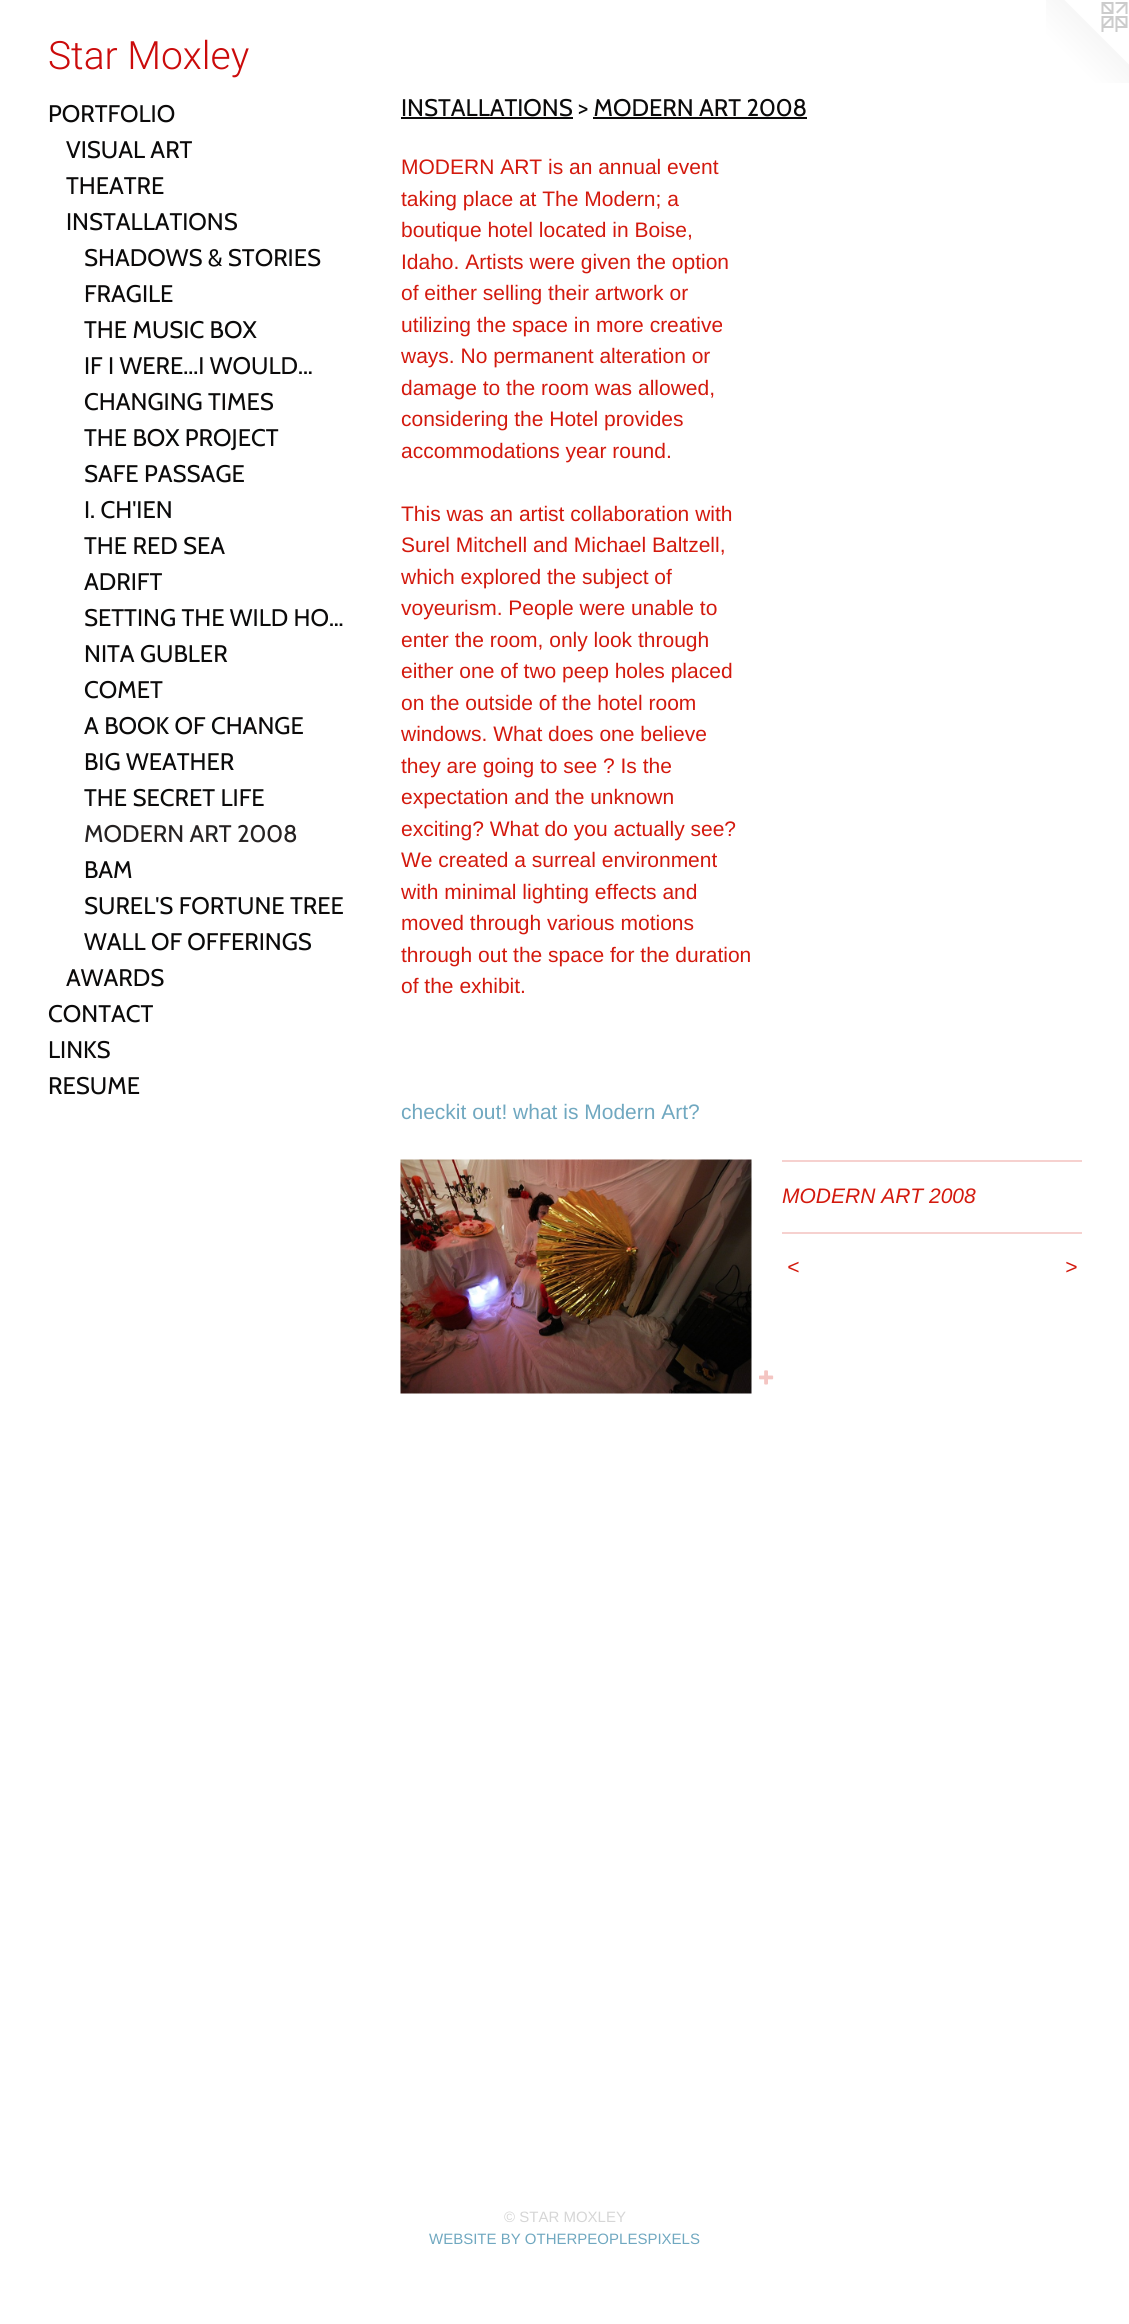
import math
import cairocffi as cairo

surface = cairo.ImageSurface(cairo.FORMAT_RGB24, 1129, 2324)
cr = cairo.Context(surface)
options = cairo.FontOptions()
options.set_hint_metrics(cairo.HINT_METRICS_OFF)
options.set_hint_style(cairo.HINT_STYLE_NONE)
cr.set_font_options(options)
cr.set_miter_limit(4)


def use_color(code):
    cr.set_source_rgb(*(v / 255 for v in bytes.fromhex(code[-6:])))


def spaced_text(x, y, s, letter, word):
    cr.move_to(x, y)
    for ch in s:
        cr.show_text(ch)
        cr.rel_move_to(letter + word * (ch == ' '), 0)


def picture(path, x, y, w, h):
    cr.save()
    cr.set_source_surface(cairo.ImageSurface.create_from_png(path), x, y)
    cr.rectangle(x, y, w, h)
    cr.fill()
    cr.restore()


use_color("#ffffff")
cr.paint()
cr.select_font_face("Roboto Light")
cr.set_font_size(39)
use_color("#cb0b0b")
cr.move_to(48, 69)
cr.show_text("Star Moxley")
picture("img1.png", 1046, 0, 83, 83)
cr.select_font_face("Cabin")
cr.set_font_size(24)
use_color("#0b0a0a")
cr.move_to(48, 122)
cr.show_text("PORTFOLIO")
cr.move_to(66, 158)
cr.show_text("VISUAL ART")
cr.move_to(66, 194)
cr.show_text("THEATRE")
cr.move_to(66, 230)
cr.show_text("INSTALLATIONS")
cr.move_to(84, 266)
cr.show_text("SHADOWS & STORIES")
cr.move_to(84, 302)
cr.show_text("FRAGILE")
cr.move_to(84, 338)
cr.show_text("THE MUSIC BOX")
cr.move_to(84, 374)
cr.show_text("IF I WERE...I WOULD...")
cr.move_to(84, 410)
cr.show_text("CHANGING TIMES")
cr.move_to(84, 446)
cr.show_text("THE BOX PROJECT")
cr.move_to(84, 482)
cr.show_text("SAFE PASSAGE")
cr.move_to(84, 518)
cr.show_text("I. CH'IEN")
cr.move_to(84, 554)
cr.show_text("THE RED SEA")
cr.move_to(84, 590)
cr.show_text("ADRIFT")
cr.move_to(84, 626)
cr.show_text("SETTING THE WILD HO…")
cr.move_to(84, 662)
cr.show_text("NITA GUBLER")
cr.move_to(84, 698)
cr.show_text("COMET")
cr.move_to(84, 734)
cr.show_text("A BOOK OF CHANGE")
cr.move_to(84, 770)
cr.show_text("BIG WEATHER")
cr.move_to(84, 806)
cr.show_text("THE SECRET LIFE")
use_color("#262222")
cr.move_to(84, 842)
cr.show_text("MODERN ART 2008")
use_color("#0b0a0a")
cr.move_to(84, 878)
cr.show_text("BAM")
cr.move_to(84, 914)
cr.show_text("SUREL'S FORTUNE TREE")
cr.move_to(84, 950)
cr.show_text("WALL OF OFFERINGS")
cr.move_to(66, 986)
cr.show_text("AWARDS")
cr.move_to(48, 1022)
cr.show_text("CONTACT")
cr.move_to(48, 1058)
cr.show_text("LINKS")
cr.move_to(48, 1094)
cr.show_text("RESUME")
cr.move_to(401, 116)
cr.show_text("INSTALLATIONS > MODERN ART 2008")
cr.rectangle(401, 117, 172, 2)
cr.fill()
cr.rectangle(593, 117, 214, 2)
cr.fill()
cr.select_font_face("Liberation Sans")
cr.set_font_size(21)
use_color("#d3190d")
cr.move_to(401, 174)
cr.show_text("MODERN ART is an annual event")
cr.move_to(401, 206)
cr.show_text("taking place at The Modern; a")
cr.move_to(401, 237)
cr.show_text("boutique hotel located in Boise,")
cr.move_to(401, 269)
cr.show_text("Idaho. Artists were given the option")
cr.move_to(401, 300)
cr.show_text("of either selling their artwork or")
cr.move_to(401, 332)
cr.show_text("utilizing the space in more creative")
cr.move_to(401, 363)
cr.show_text("ways. No permanent alteration or")
cr.move_to(401, 395)
cr.show_text("damage to the room was allowed,")
cr.move_to(401, 426)
cr.show_text("considering the Hotel provides")
cr.move_to(401, 458)
cr.show_text("accommodations year round.")
cr.move_to(401, 521)
cr.show_text("This was an artist collaboration with")
cr.move_to(401, 552)
cr.show_text("Surel Mitchell and Michael Baltzell,")
cr.move_to(401, 584)
cr.show_text("which explored the subject of")
cr.move_to(401, 615)
cr.show_text("voyeurism. People were unable to")
cr.move_to(401, 647)
cr.show_text("enter the room, only look through")
cr.move_to(401, 678)
cr.show_text("either one of two peep holes placed")
cr.move_to(401, 710)
cr.show_text("on the outside of the hotel room")
cr.move_to(401, 741)
cr.show_text("windows. What does one believe")
cr.move_to(401, 773)
cr.show_text("they are going to see ? Is the")
cr.move_to(401, 804)
cr.show_text("expectation and the unknown")
cr.move_to(401, 836)
cr.show_text("exciting? What do you actually see?")
cr.move_to(401, 867)
cr.show_text("We created a surreal environment")
cr.move_to(401, 899)
cr.show_text("with minimal lighting effects and")
cr.move_to(401, 930)
cr.show_text("moved through various motions")
cr.move_to(401, 962)
cr.show_text("through out the space for the duration")
cr.move_to(401, 993)
cr.show_text("of the exhibit.")
use_color("#70a8c0")
cr.move_to(401, 1119)
cr.show_text("checkit out! what is Modern Art?")
picture("img2.png", 400, 1159, 352, 235)
picture("img3.png", 759, 1370, 15, 15)
use_color("#f6d1cf")
cr.rectangle(782, 1160, 300, 2)
cr.fill()
cr.select_font_face("Liberation Sans", cairo.FONT_SLANT_ITALIC)
use_color("#d3190d")
cr.move_to(782, 1203)
cr.show_text("MODERN ART 2008")
use_color("#f6d1cf")
cr.rectangle(782, 1232, 300, 2)
cr.fill()
use_color("#d3190d")
spaced_text(787, 1274, "<", 2, 0)
spaced_text(1065, 1274, ">", 2, 0)
cr.select_font_face("Liberation Sans")
cr.set_font_size(15)
use_color("#d6d6d6")
cr.move_to(504, 2222)
cr.show_text("© STAR MOXLEY")
use_color("#70a8c0")
cr.move_to(429, 2244)
cr.show_text("WEBSITE BY OTHERPEOPLESPIXELS")
surface.write_to_png("result.png")
